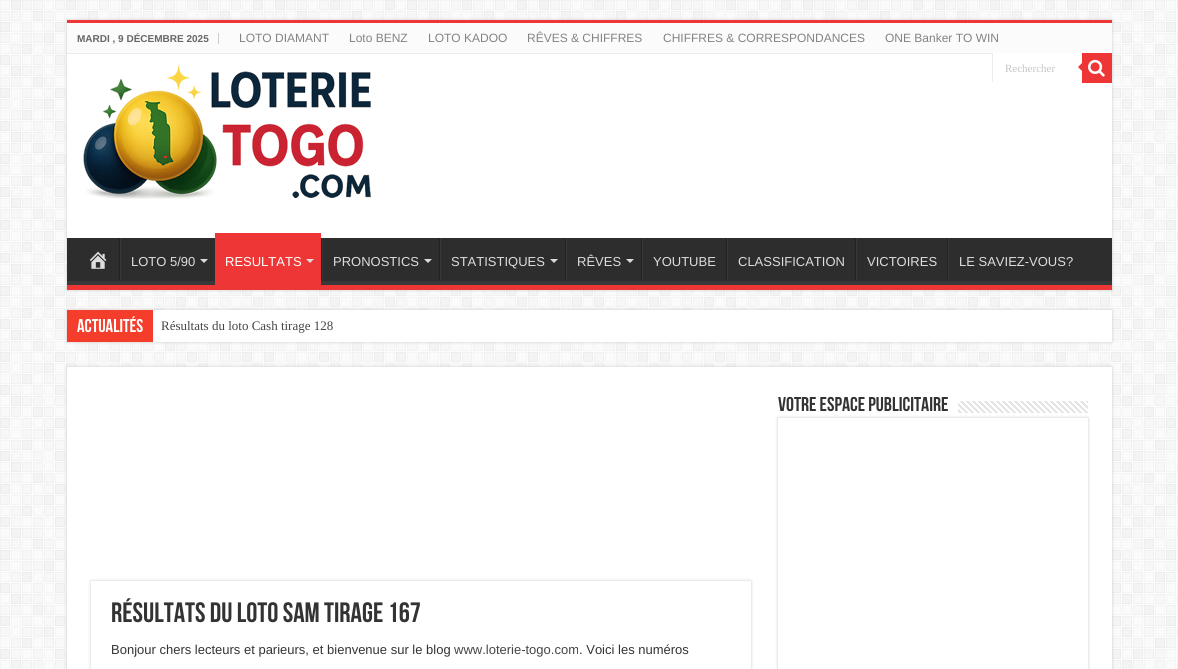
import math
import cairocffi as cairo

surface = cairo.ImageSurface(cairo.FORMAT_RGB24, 1178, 669)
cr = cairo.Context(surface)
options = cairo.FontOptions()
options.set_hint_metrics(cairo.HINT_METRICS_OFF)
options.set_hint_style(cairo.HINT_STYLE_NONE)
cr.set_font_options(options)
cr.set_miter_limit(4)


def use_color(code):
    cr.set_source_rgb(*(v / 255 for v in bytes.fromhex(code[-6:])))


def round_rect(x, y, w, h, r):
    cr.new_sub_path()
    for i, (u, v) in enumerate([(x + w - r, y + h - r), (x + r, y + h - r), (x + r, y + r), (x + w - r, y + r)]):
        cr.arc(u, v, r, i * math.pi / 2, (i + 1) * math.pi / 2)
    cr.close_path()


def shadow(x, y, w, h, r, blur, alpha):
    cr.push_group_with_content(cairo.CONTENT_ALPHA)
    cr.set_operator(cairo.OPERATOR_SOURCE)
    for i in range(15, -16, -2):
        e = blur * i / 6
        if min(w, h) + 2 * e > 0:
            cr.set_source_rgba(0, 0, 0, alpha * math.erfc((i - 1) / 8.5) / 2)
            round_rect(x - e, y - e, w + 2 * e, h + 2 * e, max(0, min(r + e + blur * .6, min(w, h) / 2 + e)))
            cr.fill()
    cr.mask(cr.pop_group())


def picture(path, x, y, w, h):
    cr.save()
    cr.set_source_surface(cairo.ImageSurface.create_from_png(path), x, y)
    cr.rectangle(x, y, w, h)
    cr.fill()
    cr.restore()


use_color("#ffffff")
cr.paint()
picture("img1.png", 0, 0, 1178, 669)
use_color("#cacaca")
shadow(67, 20, 1045, 270, 0, 1.5, 1)
use_color("#ffffff")
cr.rectangle(67, 54, 1045, 184)
cr.fill()
use_color("#ef3636")
cr.rectangle(67, 20, 1045, 3)
cr.fill()
use_color("#fbfbfb")
cr.rectangle(67, 23, 1045, 30)
cr.fill()
use_color("#ececec")
cr.rectangle(67, 53, 925, 1)
cr.fill()
use_color("#cccccc")
cr.rectangle(218, 33, 1, 11)
cr.fill()
cr.select_font_face("Liberation Sans", cairo.FONT_SLANT_NORMAL, cairo.FONT_WEIGHT_BOLD)
cr.set_font_size(10)
use_color("#666666")
cr.move_to(77, 42)
cr.show_text("MARDI , 9 DÉCEMBRE 2025")
cr.select_font_face("Liberation Sans")
cr.set_font_size(12)
use_color("#838383")
cr.move_to(239, 42)
cr.show_text("LOTO DIAMANT")
cr.move_to(349, 42)
cr.show_text("Loto BENZ")
cr.move_to(428, 42)
cr.show_text("LOTO KADOO")
cr.move_to(527, 42)
cr.show_text("RÊVES & CHIFFRES")
cr.move_to(663, 42)
cr.show_text("CHIFFRES & CORRESPONDANCES")
cr.move_to(885, 42)
cr.show_text("ONE Banker TO WIN")
use_color("#ffffff")
cr.rectangle(993, 53, 89, 1)
cr.fill()
use_color("#ececec")
cr.rectangle(992, 53, 1, 29)
cr.fill()
cr.select_font_face("Liberation Serif")
cr.set_font_size(11)
use_color("#c5c5c5")
cr.move_to(1005, 72)
cr.show_text("Rechercher")
use_color("#ef3636")
cr.rectangle(1082, 53, 30, 30)
cr.fill()
picture("img2.png", 1088, 59, 17, 18)
cr.new_path()
cr.move_to(1082, 63)
cr.line_to(1082, 71)
cr.line_to(1078, 67)
cr.close_path()
cr.fill()
picture("img3.png", 83, 65, 288, 134)
use_color("#2d2d2d")
cr.rectangle(67, 238, 1045, 43)
cr.fill()
cr.save()
cr.rectangle(67, 238, 1045, 47)
cr.clip()
use_color("#393939")
cr.set_fill_rule(cairo.FILL_RULE_EVEN_ODD)
cr.new_path()
cr.move_to(-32, 139)
cr.line_to(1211, 139)
cr.line_to(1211, 384)
cr.line_to(-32, 384)
cr.close_path()
cr.move_to(66, 232)
cr.line_to(1112, 232)
cr.line_to(1112, 272)
cr.curve_to(1112, 273, 1113, 281, 1111, 281)
cr.line_to(66, 281)
cr.line_to(65, 280)
cr.line_to(65, 232)
cr.close_path()
cr.fill()
cr.restore()
use_color("#ef3636")
cr.rectangle(67, 285, 1045, 5)
cr.fill()
picture("img4.png", 89, 251, 18, 18)
use_color("#222222")
cr.rectangle(119, 238, 1, 42)
cr.fill()
use_color("#383838")
cr.rectangle(120, 238, 1, 42)
cr.fill()
cr.select_font_face("Liberation Sans")
cr.set_font_size(13)
use_color("#dddddd")
cr.move_to(131, 266)
cr.show_text("LOTO 5/90")
cr.new_path()
cr.move_to(200, 259)
cr.line_to(208, 259)
cr.line_to(204, 263)
cr.close_path()
cr.fill()
use_color("#ef3636")
cr.rectangle(215, 233, 106, 52)
cr.fill()
use_color("#ffffff")
cr.move_to(225, 266)
cr.show_text("RESULTATS")
use_color("#dddddd")
cr.new_path()
cr.move_to(306, 259)
cr.line_to(314, 259)
cr.line_to(310, 263)
cr.close_path()
cr.fill()
use_color("#222222")
cr.rectangle(321, 238, 1, 42)
cr.fill()
use_color("#383838")
cr.rectangle(322, 238, 1, 42)
cr.fill()
use_color("#dddddd")
cr.move_to(333, 266)
cr.show_text("PRONOSTICS")
cr.new_path()
cr.move_to(424, 259)
cr.line_to(432, 259)
cr.line_to(428, 263)
cr.close_path()
cr.fill()
use_color("#222222")
cr.rectangle(439, 238, 1, 42)
cr.fill()
use_color("#383838")
cr.rectangle(440, 238, 1, 42)
cr.fill()
use_color("#dddddd")
cr.move_to(451, 266)
cr.show_text("STATISTIQUES")
cr.new_path()
cr.move_to(550, 259)
cr.line_to(558, 259)
cr.line_to(554, 263)
cr.close_path()
cr.fill()
use_color("#222222")
cr.rectangle(565, 238, 1, 42)
cr.fill()
use_color("#383838")
cr.rectangle(566, 238, 1, 42)
cr.fill()
use_color("#dddddd")
cr.move_to(577, 266)
cr.show_text("RÊVES")
cr.new_path()
cr.move_to(626, 259)
cr.line_to(634, 259)
cr.line_to(630, 263)
cr.close_path()
cr.fill()
use_color("#222222")
cr.rectangle(641, 238, 1, 42)
cr.fill()
use_color("#383838")
cr.rectangle(642, 238, 1, 42)
cr.fill()
use_color("#dddddd")
cr.move_to(653, 266)
cr.show_text("YOUTUBE")
use_color("#222222")
cr.rectangle(726, 238, 1, 42)
cr.fill()
use_color("#383838")
cr.rectangle(727, 238, 1, 42)
cr.fill()
use_color("#dddddd")
cr.move_to(738, 266)
cr.show_text("CLASSIFICATION")
use_color("#222222")
cr.rectangle(855, 238, 1, 42)
cr.fill()
use_color("#383838")
cr.rectangle(856, 238, 1, 42)
cr.fill()
use_color("#dddddd")
cr.move_to(867, 266)
cr.show_text("VICTOIRES")
use_color("#222222")
cr.rectangle(947, 238, 1, 42)
cr.fill()
use_color("#383838")
cr.rectangle(948, 238, 1, 42)
cr.fill()
use_color("#dddddd")
cr.move_to(959, 266)
cr.show_text("LE SAVIEZ-VOUS?")
use_color("#cacaca")
shadow(67, 310, 1045, 32, 0, 1.5, 1)
use_color("#ffffff")
cr.rectangle(153, 310, 959, 32)
cr.fill()
use_color("#f43d2a")
cr.rectangle(67, 310, 86, 32)
cr.fill()
cr.select_font_face("Bebas Neue", cairo.FONT_SLANT_NORMAL, cairo.FONT_WEIGHT_BOLD)
cr.set_font_size(18.5)
use_color("#ffffff")
cr.move_to(77, 332)
cr.show_text("Actualités")
cr.select_font_face("Liberation Serif")
cr.set_font_size(13)
use_color("#444444")
cr.move_to(161, 330)
cr.show_text("Résultats du loto Cash tirage 128")
use_color("#cacaca")
shadow(67, 367, 1045, 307, 0, 1.5, 1)
use_color("#ffffff")
cr.rectangle(67, 367, 1045, 302)
cr.fill()
cr.select_font_face("Bebas Neue", cairo.FONT_SLANT_NORMAL, cairo.FONT_WEIGHT_BOLD)
cr.set_font_size(20)
use_color("#333333")
cr.move_to(778, 411)
cr.show_text("Votre espace publicitaire")
cr.save()
cr.set_fill_rule(cairo.FILL_RULE_EVEN_ODD)
cr.new_path()
cr.move_to(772, 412)
cr.line_to(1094, 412)
cr.line_to(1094, 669)
cr.line_to(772, 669)
cr.close_path()
cr.move_to(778, 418)
cr.line_to(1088, 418)
cr.line_to(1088, 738)
cr.line_to(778, 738)
cr.close_path()
cr.clip()
use_color("#cacaca")
shadow(778, 418, 310, 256, 0, 1.5, 1)
cr.restore()
picture("img5.png", 958, 401, 130, 12)
cr.save()
cr.set_fill_rule(cairo.FILL_RULE_EVEN_ODD)
cr.new_path()
cr.move_to(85, 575)
cr.line_to(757, 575)
cr.line_to(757, 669)
cr.line_to(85, 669)
cr.close_path()
cr.move_to(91, 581)
cr.line_to(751, 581)
cr.line_to(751, 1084)
cr.line_to(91, 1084)
cr.close_path()
cr.clip()
use_color("#cacaca")
shadow(91, 581, 660, 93, 0, 1.5, 1)
cr.restore()
cr.set_font_size(28)
cr.move_to(111, 622)
cr.show_text("Résultats du loto SAM tirage 167")
cr.select_font_face("Liberation Sans")
cr.set_font_size(13)
cr.move_to(111, 654)
cr.show_text("Bonjour chers lecteurs et parieurs, et bienvenue sur le blog")
use_color("#444444")
cr.move_to(454, 654)
cr.show_text("www.loterie-togo.com")
use_color("#333333")
cr.move_to(579, 654)
cr.show_text(". Voici les numéros")
surface.write_to_png("result.png")
